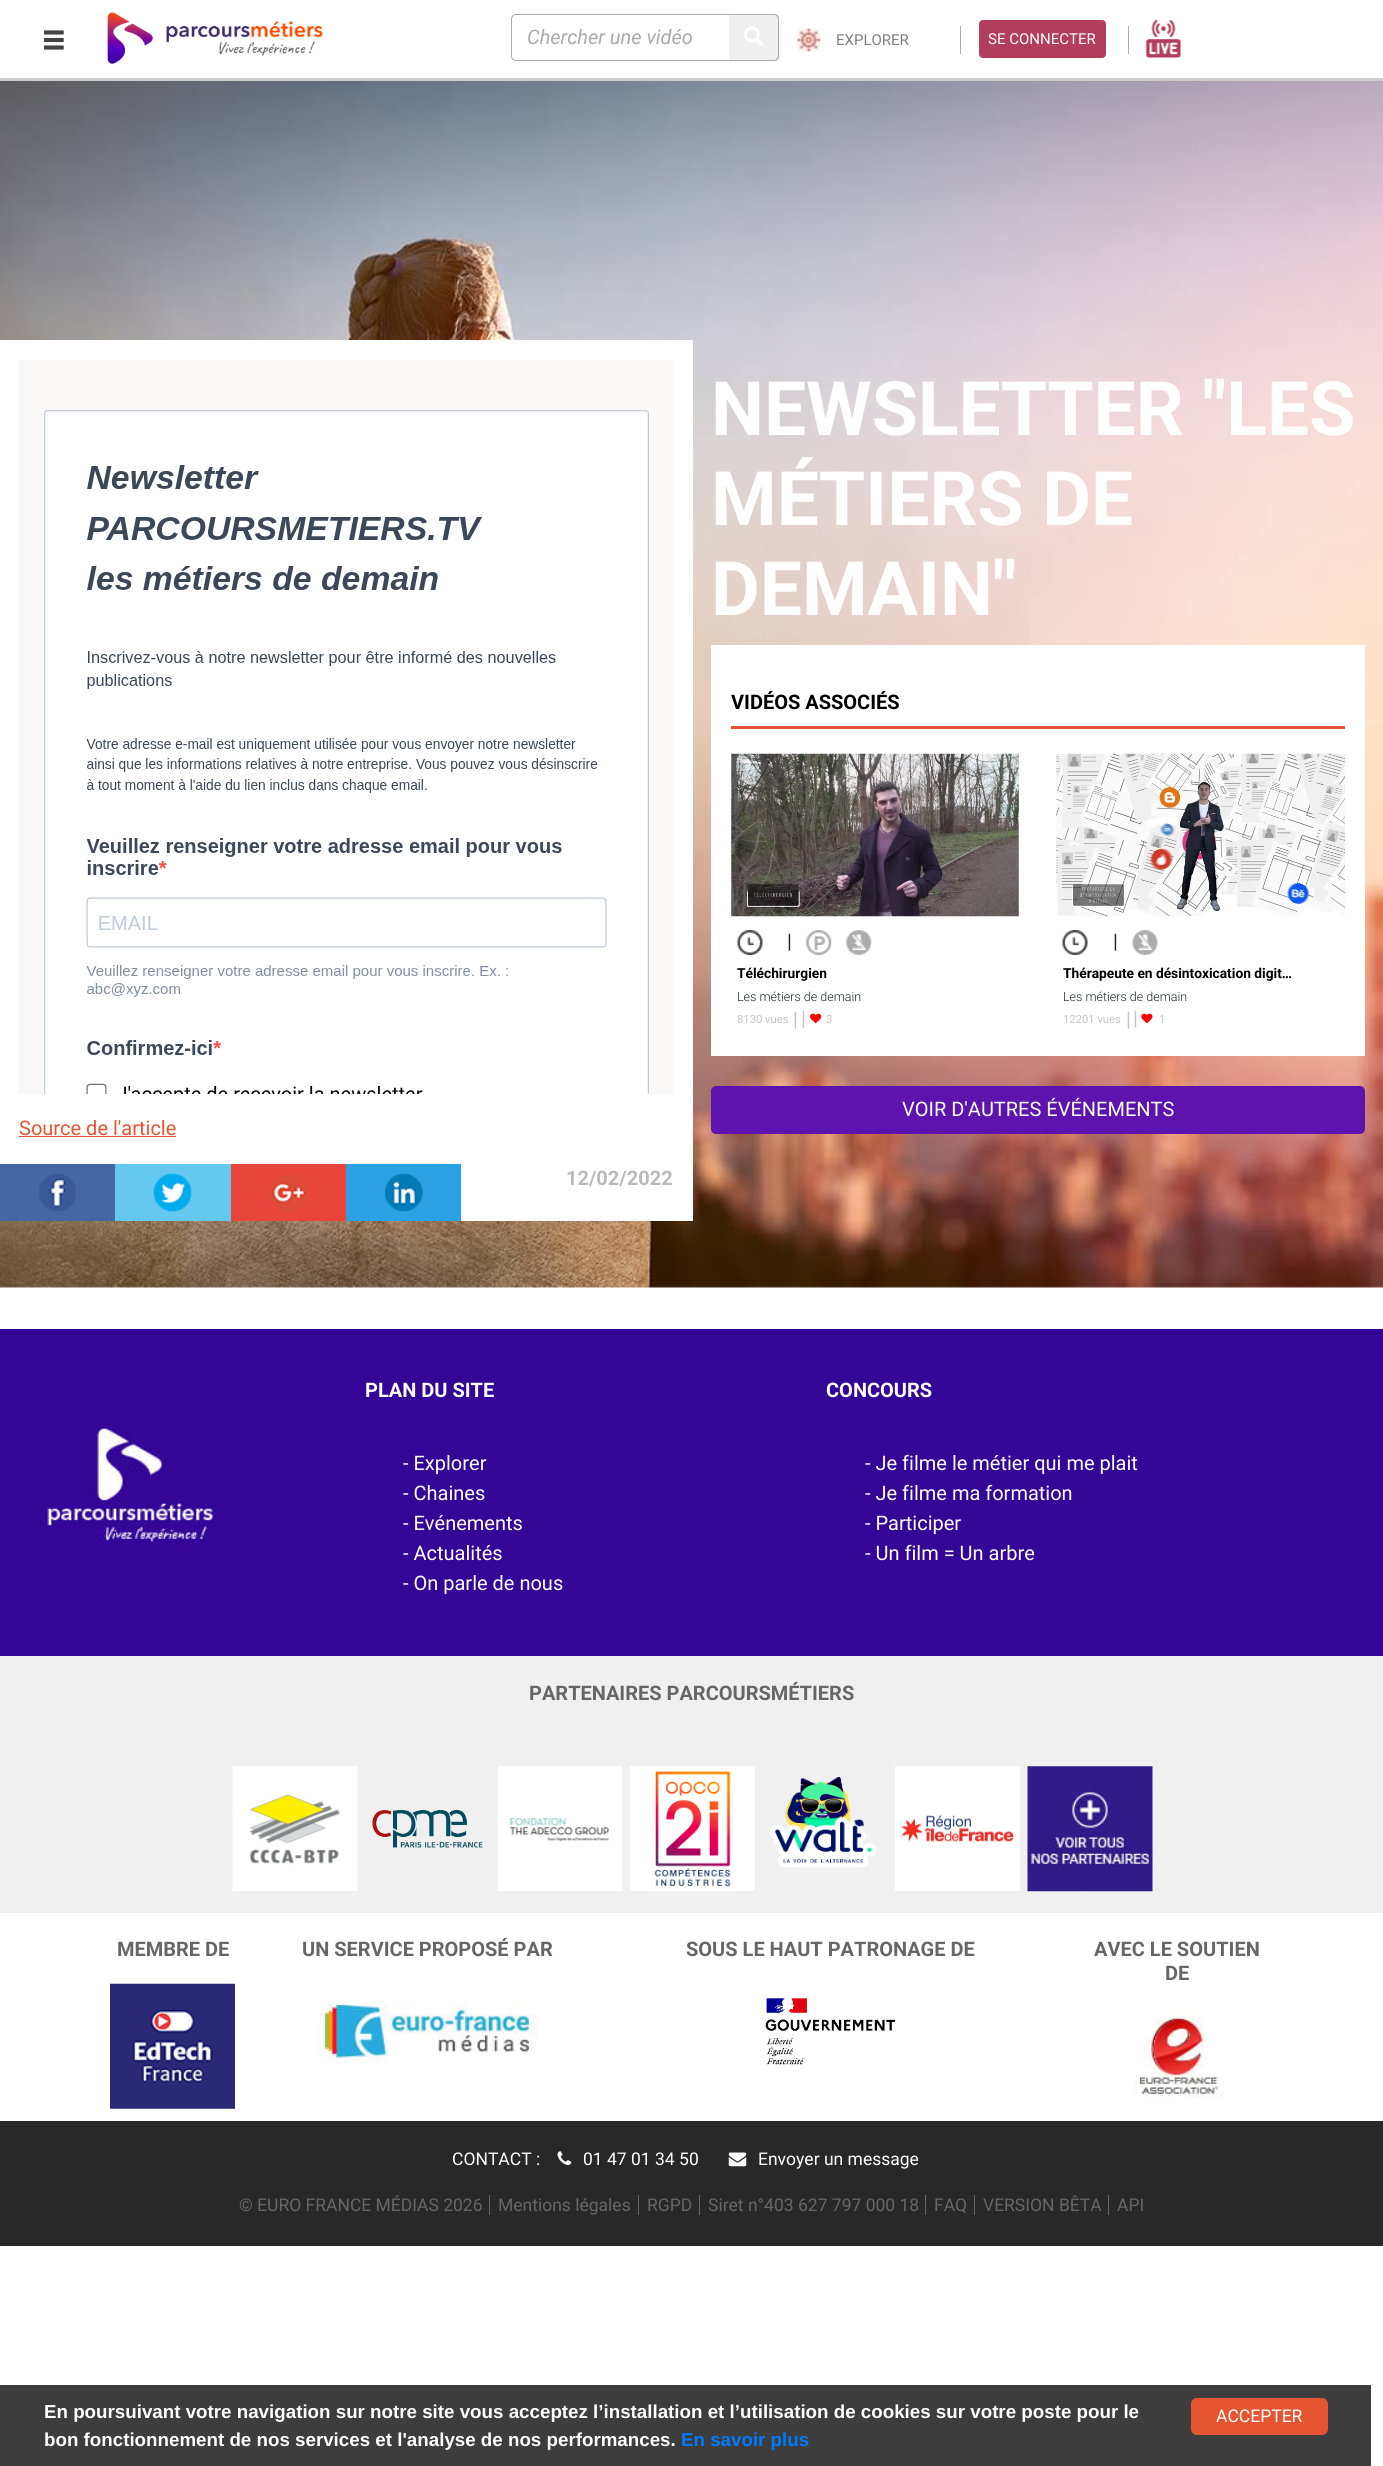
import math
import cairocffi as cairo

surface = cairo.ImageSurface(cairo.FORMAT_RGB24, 1383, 2466)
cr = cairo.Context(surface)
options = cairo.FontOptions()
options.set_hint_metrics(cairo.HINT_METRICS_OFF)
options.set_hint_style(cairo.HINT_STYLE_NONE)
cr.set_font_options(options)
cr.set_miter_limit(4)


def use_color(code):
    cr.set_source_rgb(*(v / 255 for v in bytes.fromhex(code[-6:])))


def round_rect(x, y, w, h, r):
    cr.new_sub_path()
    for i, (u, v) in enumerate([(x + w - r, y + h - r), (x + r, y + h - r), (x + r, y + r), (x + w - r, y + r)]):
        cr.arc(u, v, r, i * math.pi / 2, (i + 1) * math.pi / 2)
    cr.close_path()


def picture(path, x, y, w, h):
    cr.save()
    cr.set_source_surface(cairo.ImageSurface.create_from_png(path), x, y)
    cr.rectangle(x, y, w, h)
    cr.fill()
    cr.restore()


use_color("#ffffff")
cr.paint()
use_color("#cdcdcd")
cr.rectangle(0, 78, 1383, 3)
cr.fill()
picture("img1.png", 44, 30, 20, 20)
picture("img2.png", 107, 12, 216, 52)
round_rect(511.5, 14.5, 267, 46, 4.5)
use_color("#acacac")
cr.set_line_width(1)
cr.stroke()
cr.select_font_face("Roboto", cairo.FONT_SLANT_ITALIC)
cr.set_font_size(20)
use_color("#aaaaaa")
cr.move_to(527, 44)
cr.show_text("Chercher une vidéo")
use_color("#efefef")
cr.new_path()
cr.move_to(729, 14)
cr.line_to(774, 14)
cr.curve_to(777, 14, 779, 16, 779, 19)
cr.line_to(779, 56)
cr.curve_to(779, 59, 777, 61, 774, 61)
cr.line_to(729, 61)
cr.close_path()
cr.fill()
use_color("#acacac")
cr.set_fill_rule(cairo.FILL_RULE_EVEN_ODD)
cr.new_path()
cr.move_to(729, 14)
cr.line_to(774, 14)
cr.curve_to(777, 14, 779, 16, 779, 19)
cr.line_to(779, 56)
cr.curve_to(779, 59, 777, 61, 774, 61)
cr.line_to(729, 61)
cr.close_path()
cr.move_to(729, 15)
cr.line_to(774, 15)
cr.curve_to(776, 15, 778, 17, 778, 19)
cr.line_to(778, 56)
cr.curve_to(778, 58, 776, 60, 774, 60)
cr.line_to(729, 60)
cr.close_path()
cr.fill()
picture("img3.png", 744, 26, 20, 20)
picture("img4.png", 797, 28, 24, 24)
cr.select_font_face("Roboto")
cr.set_font_size(15)
use_color("#808080")
cr.move_to(836, 45)
cr.show_text("EXPLORER")
use_color("#aaaaaa")
cr.rectangle(960, 26, 1, 28)
cr.fill()
use_color("#b33d5d")
round_rect(979, 20, 127, 38, 4)
cr.fill()
use_color("#ffffff")
cr.move_to(988, 44)
cr.show_text("SE CONNECTER")
use_color("#aaaaaa")
cr.rectangle(1128, 26, 1, 28)
cr.fill()
picture("img5.png", 1145, 20, 36, 38)
picture("img20.png", 0, 81, 1383, 1207)
cr.select_font_face("Roboto", cairo.FONT_SLANT_NORMAL, cairo.FONT_WEIGHT_BOLD)
cr.set_font_size(75)
use_color("#ffffff")
cr.move_to(711, 435)
cr.show_text("NEWSLETTER \"LES")
cr.move_to(711, 525)
cr.show_text("MÉTIERS DE")
cr.move_to(711, 615)
cr.show_text("DEMAIN\"")
cr.rectangle(711, 645, 654, 411)
cr.fill()
use_color("#e45431")
cr.rectangle(731, 726, 614, 3)
cr.fill()
cr.set_font_size(20)
use_color("#000000")
cr.move_to(731, 709)
cr.show_text("VIDÉOS ASSOCIÉS")
picture("img6.png", 731, 753, 288, 164)
picture("img7.png", 737, 930, 26, 25)
cr.select_font_face("Roboto")
use_color("#212529")
cr.move_to(787, 948)
cr.show_text("|")
picture("img8.png", 806, 930, 26, 25)
picture("img9.png", 846, 930, 26, 25)
cr.select_font_face("Roboto", cairo.FONT_SLANT_NORMAL, cairo.FONT_WEIGHT_BOLD)
cr.set_font_size(13.75)
use_color("#000000")
cr.move_to(737, 978)
cr.show_text("Téléchirurgien")
cr.select_font_face("Roboto Light")
cr.set_font_size(12.5)
use_color("#212529")
cr.move_to(737, 1001)
cr.show_text("Les métiers de demain")
cr.select_font_face("Roboto")
cr.set_font_size(11.25)
use_color("#c4c4c4")
cr.move_to(737, 1023)
cr.show_text("8130 vues")
cr.set_font_size(20)
cr.move_to(793, 1026)
cr.show_text("|")
cr.move_to(801, 1025)
cr.show_text("|")
picture("img10.png", 810, 1013, 12, 11)
cr.set_font_size(11.25)
cr.move_to(826, 1023)
cr.show_text("3")
picture("img11.png", 1056, 753, 289, 164)
picture("img12.png", 1062, 930, 26, 25)
cr.set_font_size(20)
use_color("#212529")
cr.move_to(1113, 948)
cr.show_text("|")
picture("img13.png", 1132, 930, 26, 25)
cr.select_font_face("Roboto", cairo.FONT_SLANT_NORMAL, cairo.FONT_WEIGHT_BOLD)
cr.set_font_size(13.75)
use_color("#000000")
cr.move_to(1063, 978)
cr.show_text("Thérapeute en désintoxication digit…")
cr.select_font_face("Roboto Light")
cr.set_font_size(12.5)
use_color("#212529")
cr.move_to(1063, 1001)
cr.show_text("Les métiers de demain")
cr.select_font_face("Roboto")
cr.set_font_size(11.25)
use_color("#c4c4c4")
cr.move_to(1063, 1023)
cr.show_text("12201 vues")
cr.set_font_size(20)
cr.move_to(1126, 1026)
cr.show_text("|")
cr.move_to(1133, 1025)
cr.show_text("|")
picture("img14.png", 1141, 1013, 12, 11)
cr.set_font_size(11.25)
cr.move_to(1159, 1023)
cr.show_text("1")
use_color("#5d13ae")
round_rect(711, 1086, 654, 48, 5)
cr.fill()
cr.set_font_size(20)
use_color("#ffffff")
cr.move_to(902, 1116)
cr.show_text("VOIR D'AUTRES ÉVÉNEMENTS")
cr.rectangle(0, 340, 693, 881)
cr.fill()
picture("img15.png", 19, 360, 655, 734)
use_color("#e55532")
cr.move_to(19, 1135)
cr.show_text("Source de l'article")
cr.rectangle(19, 1136, 157, 1)
cr.fill()
use_color("#4567a4")
cr.rectangle(0, 1164, 115, 57)
cr.fill()
picture("img16.png", 39, 1173, 37, 39)
use_color("#65c8ef")
cr.rectangle(115, 1164, 116, 57)
cr.fill()
picture("img17.png", 153, 1173, 39, 39)
use_color("#e8463b")
cr.rectangle(231, 1164, 115, 57)
cr.fill()
picture("img18.png", 270, 1174, 38, 37)
use_color("#2ca1e4")
cr.rectangle(346, 1164, 115, 57)
cr.fill()
picture("img19.png", 385, 1173, 38, 39)
cr.select_font_face("Roboto", cairo.FONT_SLANT_NORMAL, cairo.FONT_WEIGHT_BOLD)
use_color("#b9b9b9")
cr.move_to(566, 1185)
cr.show_text("12/02/2022")
use_color("#350597")
cr.rectangle(0, 1329, 1383, 327)
cr.fill()
picture("img21.png", 39, 1428, 180, 119)
use_color("#ffffff")
cr.move_to(365, 1397)
cr.show_text("PLAN DU SITE")
cr.select_font_face("Roboto")
cr.move_to(403, 1470)
cr.show_text("- Explorer")
cr.move_to(403, 1500)
cr.show_text("- Chaines")
cr.move_to(403, 1530)
cr.show_text("- Evénements")
cr.move_to(403, 1560)
cr.show_text("- Actualités")
cr.move_to(403, 1590)
cr.show_text("- On parle de nous")
cr.select_font_face("Roboto", cairo.FONT_SLANT_NORMAL, cairo.FONT_WEIGHT_BOLD)
cr.move_to(826, 1397)
cr.show_text("CONCOURS")
cr.select_font_face("Roboto")
cr.move_to(865, 1470)
cr.show_text("- Je filme le métier qui me plait")
cr.move_to(865, 1500)
cr.show_text("- Je filme ma formation")
cr.move_to(865, 1530)
cr.show_text("- Participer")
cr.move_to(865, 1560)
cr.show_text("- Un film = Un arbre")
use_color("#f0f0f0")
cr.rectangle(0, 1656, 1383, 257)
cr.fill()
cr.select_font_face("Roboto", cairo.FONT_SLANT_NORMAL, cairo.FONT_WEIGHT_BOLD)
use_color("#666666")
cr.move_to(529, 1700)
cr.show_text("PARTENAIRES PARCOURSMÉTIERS")
picture("img22.png", 232, 1766, 126, 125)
picture("img23.png", 372, 1810, 111, 38)
picture("img24.png", 497, 1766, 126, 125)
picture("img25.png", 630, 1766, 125, 125)
picture("img26.png", 770, 1776, 107, 92)
picture("img27.png", 895, 1766, 125, 125)
picture("img28.png", 1027, 1766, 126, 126)
cr.move_to(117, 1956)
cr.show_text("MEMBRE DE")
picture("img29.png", 110, 1983, 125, 126)
cr.move_to(302, 1956)
cr.show_text("UN SERVICE PROPOSÉ PAR")
picture("img30.png", 317, 2003, 221, 61)
cr.move_to(686, 1956)
cr.show_text("SOUS LE HAUT PATRONAGE DE")
picture("img31.png", 765, 1998, 131, 67)
cr.move_to(1094, 1956)
cr.show_text("AVEC LE SOUTIEN")
cr.move_to(1165, 1980)
cr.show_text("DE")
picture("img32.png", 1134, 2008, 90, 90)
use_color("#282828")
cr.rectangle(0, 2121, 1383, 125)
cr.fill()
cr.select_font_face("Roboto")
cr.set_font_size(17.5)
use_color("#ffffff")
cr.move_to(452, 2165)
cr.show_text("CONTACT :")
picture("img33.png", 557, 2151, 15, 14)
cr.move_to(583, 2165)
cr.show_text("01 47 01 34 50")
picture("img34.png", 728, 2152, 19, 15)
cr.move_to(758, 2165)
cr.show_text("Envoyer un message")
use_color("#666666")
cr.move_to(239, 2211)
cr.show_text("© EURO FRANCE MÉDIAS 2026")
cr.rectangle(489, 2195, 1, 20)
cr.fill()
cr.move_to(498, 2211)
cr.show_text("Mentions légales")
cr.rectangle(638, 2195, 1, 20)
cr.fill()
cr.move_to(647, 2211)
cr.show_text("RGPD")
cr.rectangle(699, 2195, 1, 20)
cr.fill()
cr.move_to(708, 2211)
cr.show_text("Siret n°403 627 797 000 18")
cr.rectangle(925, 2195, 1, 20)
cr.fill()
cr.move_to(934, 2211)
cr.show_text("FAQ")
cr.rectangle(974, 2195, 1, 20)
cr.fill()
cr.move_to(983, 2211)
cr.show_text("VERSION BÊTA")
cr.rectangle(1108, 2195, 1, 20)
cr.fill()
cr.move_to(1117, 2211)
cr.show_text("API")
use_color("#3d3d3d")
cr.rectangle(0, 2385, 1371, 81)
cr.fill()
cr.select_font_face("Liberation Sans", cairo.FONT_SLANT_NORMAL, cairo.FONT_WEIGHT_BOLD)
cr.set_font_size(18.75)
use_color("#ffffff")
cr.move_to(44, 2418)
cr.show_text("En poursuivant votre navigation sur notre site vous acceptez l’installation et l’utilisation de cookies sur votre poste pour le")
cr.move_to(44, 2446)
cr.show_text("bon fonctionnement de nos services et l'analyse de nos performances.")
use_color("#007bff")
cr.move_to(681, 2446)
cr.show_text("En savoir plus")
use_color("#e55531")
round_rect(1191, 2398, 137, 37, 6)
cr.fill()
cr.select_font_face("Roboto")
cr.set_font_size(17.5)
use_color("#ffffff")
cr.move_to(1216, 2422)
cr.show_text("ACCEPTER")
surface.write_to_png("result.png")
